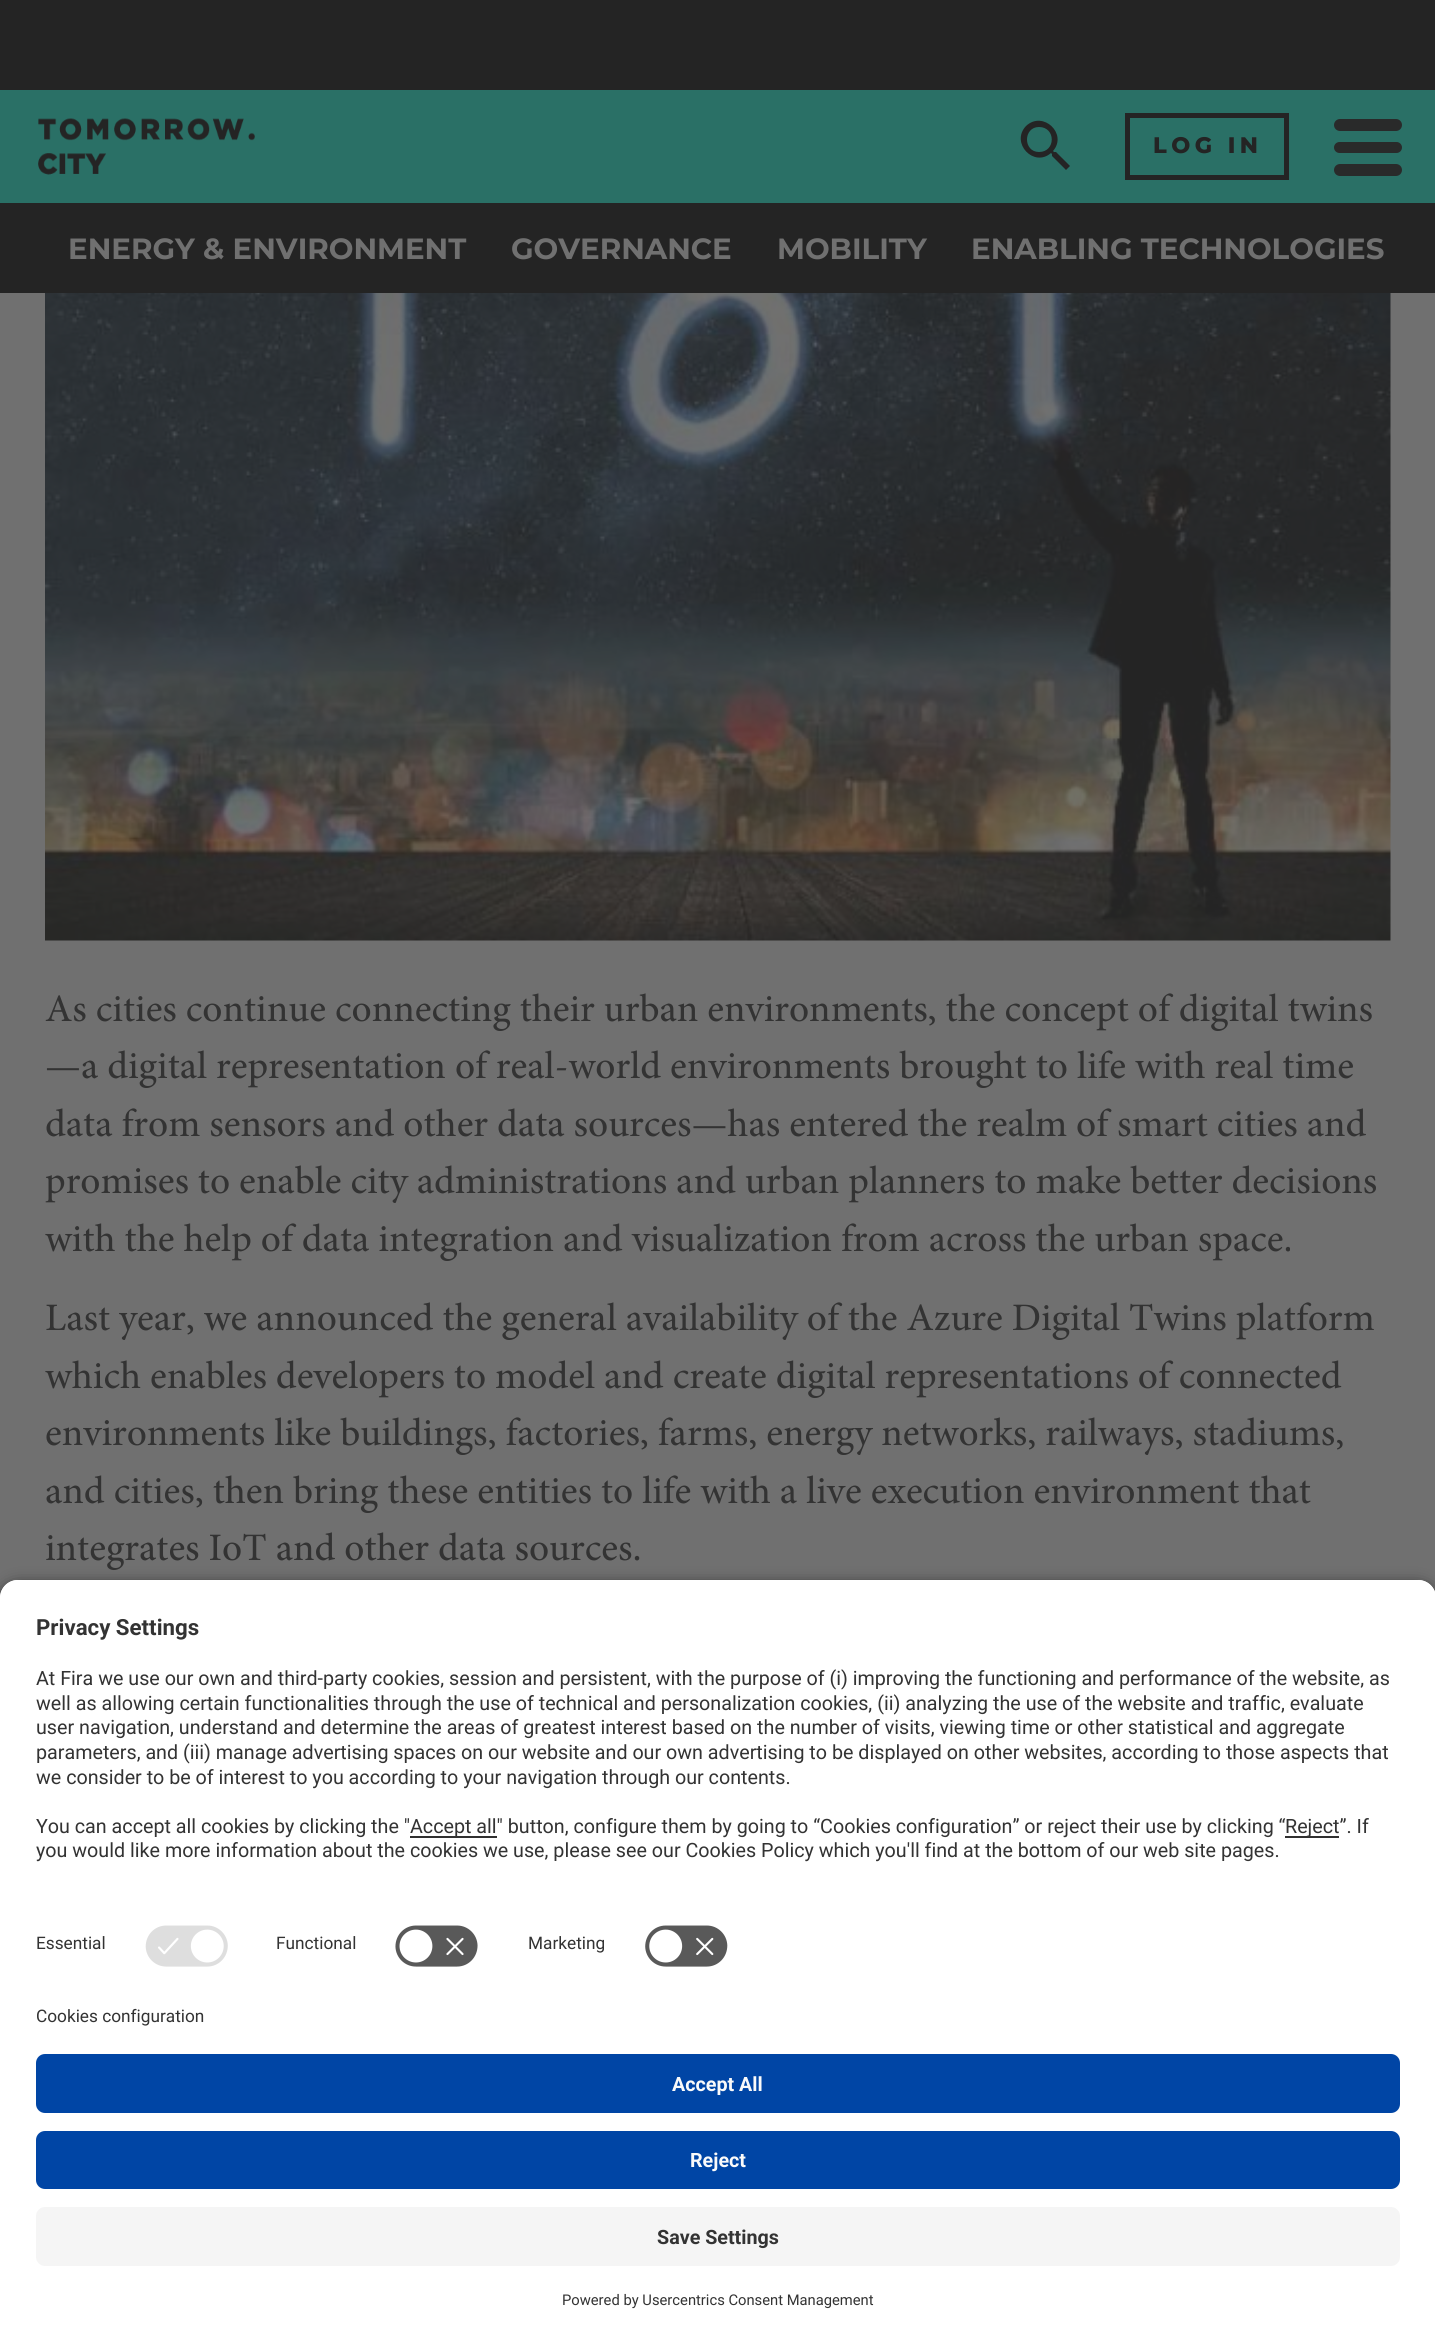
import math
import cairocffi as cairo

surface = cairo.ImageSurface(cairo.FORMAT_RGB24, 1435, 2346)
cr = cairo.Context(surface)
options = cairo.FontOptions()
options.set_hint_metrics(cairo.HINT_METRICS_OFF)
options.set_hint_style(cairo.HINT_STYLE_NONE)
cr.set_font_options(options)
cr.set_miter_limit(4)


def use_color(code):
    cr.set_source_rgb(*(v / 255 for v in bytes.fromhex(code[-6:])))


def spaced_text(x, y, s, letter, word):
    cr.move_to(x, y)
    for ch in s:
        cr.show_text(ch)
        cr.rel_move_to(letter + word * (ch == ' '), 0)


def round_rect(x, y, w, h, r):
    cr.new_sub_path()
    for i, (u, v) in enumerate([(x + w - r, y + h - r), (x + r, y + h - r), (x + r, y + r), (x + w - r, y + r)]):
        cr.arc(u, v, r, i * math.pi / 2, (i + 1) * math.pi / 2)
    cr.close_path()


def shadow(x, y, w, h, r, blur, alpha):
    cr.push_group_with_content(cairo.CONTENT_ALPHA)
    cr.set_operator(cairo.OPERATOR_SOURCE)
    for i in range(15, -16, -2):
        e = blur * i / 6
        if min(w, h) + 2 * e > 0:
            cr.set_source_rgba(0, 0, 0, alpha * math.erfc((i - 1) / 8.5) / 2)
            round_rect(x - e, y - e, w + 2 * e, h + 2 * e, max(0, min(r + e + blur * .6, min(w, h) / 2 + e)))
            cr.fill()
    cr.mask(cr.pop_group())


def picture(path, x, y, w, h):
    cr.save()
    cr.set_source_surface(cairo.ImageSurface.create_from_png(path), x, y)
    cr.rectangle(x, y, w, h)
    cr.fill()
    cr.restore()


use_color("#707070")
cr.paint()
use_color("#2a7066")
cr.rectangle(0, 90, 1435, 113)
cr.fill()
use_color("#242424")
cr.rectangle(0, 0, 1435, 90)
cr.fill()
picture("img1.png", 38, 118, 217, 57)
cr.new_path()
cr.move_to(1056, 152)
cr.line_to(1054, 152)
cr.line_to(1053, 151)
cr.curve_to(1068, 134, 1043, 110, 1026, 126)
cr.curve_to(1010, 143, 1034, 168, 1051, 153)
cr.line_to(1052, 154)
cr.line_to(1052, 156)
cr.line_to(1066, 170)
cr.line_to(1070, 166)
cr.close_path()
cr.move_to(1039, 152)
cr.curve_to(1023, 152, 1023, 127, 1039, 127)
cr.curve_to(1056, 127, 1056, 152, 1039, 152)
cr.close_path()
cr.fill()
cr.rectangle(1127.5, 115.5, 159, 62)
cr.set_line_width(5)
cr.stroke()
cr.select_font_face("Montserrat ExtraBold")
cr.set_font_size(22.5)
spaced_text(1153, 153, "LOG IN", 4.5, 0)
use_color("#292a2a")
round_rect(1334, 119, 68, 12, 6)
cr.fill()
round_rect(1334, 142, 68, 11, 5.5)
cr.fill()
round_rect(1334, 164, 68, 12, 6)
cr.fill()
use_color("#242424")
cr.rectangle(0, 203, 1435, 90)
cr.fill()
cr.select_font_face("Montserrat", cairo.FONT_SLANT_NORMAL, cairo.FONT_WEIGHT_BOLD)
cr.set_font_size(29.25)
use_color("#707070")
cr.move_to(68, 259)
cr.show_text("ENERGY & ENVIRONMENT")
cr.move_to(511, 259)
cr.show_text("GOVERNANCE")
cr.move_to(777, 259)
cr.show_text("MOBILITY")
cr.move_to(971, 259)
cr.show_text("ENABLING TECHNOLOGIES")
picture("img2.png", 45, 293, 1346, 648)
cr.select_font_face("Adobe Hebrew")
cr.set_font_size(38.25)
use_color("#333333")
cr.move_to(45, 1021)
cr.show_text("As cities continue connecting their urban environments, the concept of digital twins")
cr.move_to(45, 1078)
cr.show_text("—a digital representation of real-world environments brought to life with real time")
cr.move_to(45, 1136)
cr.show_text("data from sensors and other data sources—has entered the realm of smart cities and")
cr.move_to(45, 1193)
cr.show_text("promises to enable city administrations and urban planners to make better decisions")
cr.move_to(45, 1251)
cr.show_text("with the help of data integration and visualization from across the urban space.")
cr.move_to(45, 1330)
cr.show_text("Last year, we announced the general availability of the Azure Digital Twins platform")
cr.move_to(45, 1388)
cr.show_text("which enables developers to model and create digital representations of connected")
cr.move_to(45, 1445)
cr.show_text("environments like buildings, factories, farms, energy networks, railways, stadiums,")
cr.move_to(45, 1503)
cr.show_text("and cities, then bring these entities to life with a live execution environment that")
cr.move_to(45, 1560)
cr.show_text("integrates IoT and other data sources.")
use_color("#000000")
shadow(0, 1586, 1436, 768, 18, 8, 0.8)
use_color("#ffffff")
cr.new_path()
cr.move_to(18, 1580)
cr.line_to(1418, 1580)
cr.curve_to(1428, 1580, 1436, 1588, 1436, 1598)
cr.line_to(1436, 2007)
cr.line_to(0, 2007)
cr.line_to(0, 1598)
cr.curve_to(0, 1588, 8, 1580, 18, 1580)
cr.close_path()
cr.fill()
cr.new_path()
cr.move_to(18, 1580)
cr.line_to(1418, 1580)
cr.curve_to(1428, 1580, 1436, 1588, 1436, 1598)
cr.line_to(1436, 1908)
cr.line_to(0, 1908)
cr.line_to(0, 1598)
cr.curve_to(0, 1588, 8, 1580, 18, 1580)
cr.close_path()
cr.fill()
cr.select_font_face("Roboto", cairo.FONT_SLANT_NORMAL, cairo.FONT_WEIGHT_BOLD)
cr.set_font_size(22.25)
use_color("#333333")
cr.move_to(36, 1635)
cr.show_text("Privacy Settings")
cr.select_font_face("Roboto")
cr.set_font_size(19.7)
cr.move_to(36, 1685)
cr.show_text("At Fira we use our own and third-party cookies, session and persistent, with the purpose of (i) improving the functioning and performance of the website, as")
cr.move_to(36, 1710)
cr.show_text("well as allowing certain functionalities through the use of technical and personalization cookies, (ii) analyzing the use of the website and traffic, evaluate")
cr.move_to(36, 1734)
cr.show_text("user navigation, understand and determine the areas of greatest interest based on the number of visits, viewing time or other statistical and aggregate")
cr.move_to(36, 1759)
cr.show_text("parameters, and (iii) manage advertising spaces on our website and our own advertising to be displayed on other websites, according to those aspects that")
cr.move_to(36, 1784)
cr.show_text("we consider to be of interest to you according to your navigation through our contents.")
cr.move_to(36, 1833)
cr.show_text("You can accept all cookies by clicking the \"")
use_color("#303030")
cr.rectangle(410, 1836, 87, 2)
cr.fill()
use_color("#333333")
cr.move_to(410, 1833)
cr.show_text("Accept all\" button, configure them by going to “Cookies configuration” or reject their use by clicking “")
use_color("#303030")
cr.rectangle(1285, 1836, 54, 2)
cr.fill()
use_color("#333333")
cr.move_to(1285, 1833)
cr.show_text("Reject”. If")
cr.move_to(36, 1857)
cr.show_text("you would like more information about the cookies we use, please see our Cookies Policy which you'll find at the bottom of our web site pages.")
cr.set_font_size(17.25)
cr.move_to(36, 1949)
cr.show_text("Essential")
picture("img3.png", 145, 1925, 83, 42)
cr.move_to(276, 1949)
cr.show_text("Functional")
picture("img4.png", 395, 1925, 83, 42)
cr.move_to(528, 1949)
cr.show_text("Marketing")
picture("img5.png", 645, 1925, 83, 42)
use_color("#ffffff")
cr.rectangle(0, 2007, 1435, 339)
cr.fill()
use_color("#333333")
cr.move_to(36, 2022)
cr.show_text("Cookies configuration")
use_color("#0045a5")
round_rect(36, 2054, 1364, 59, 9)
cr.fill()
cr.select_font_face("Roboto", cairo.FONT_SLANT_NORMAL, cairo.FONT_WEIGHT_BOLD)
cr.set_font_size(19.7)
use_color("#fafafa")
cr.move_to(672, 2091)
cr.show_text("Accept All")
use_color("#0045a5")
round_rect(36, 2131, 1364, 58, 9)
cr.fill()
use_color("#fafafa")
cr.move_to(690, 2167)
cr.show_text("Reject")
use_color("#f5f5f5")
round_rect(36, 2207, 1364, 59, 9)
cr.fill()
use_color("#333333")
cr.move_to(657, 2244)
cr.show_text("Save Settings")
cr.select_font_face("Roboto")
cr.set_font_size(14.75)
cr.move_to(562, 2305)
cr.show_text("Powered by Usercentrics Consent Management")
surface.write_to_png("result.png")
